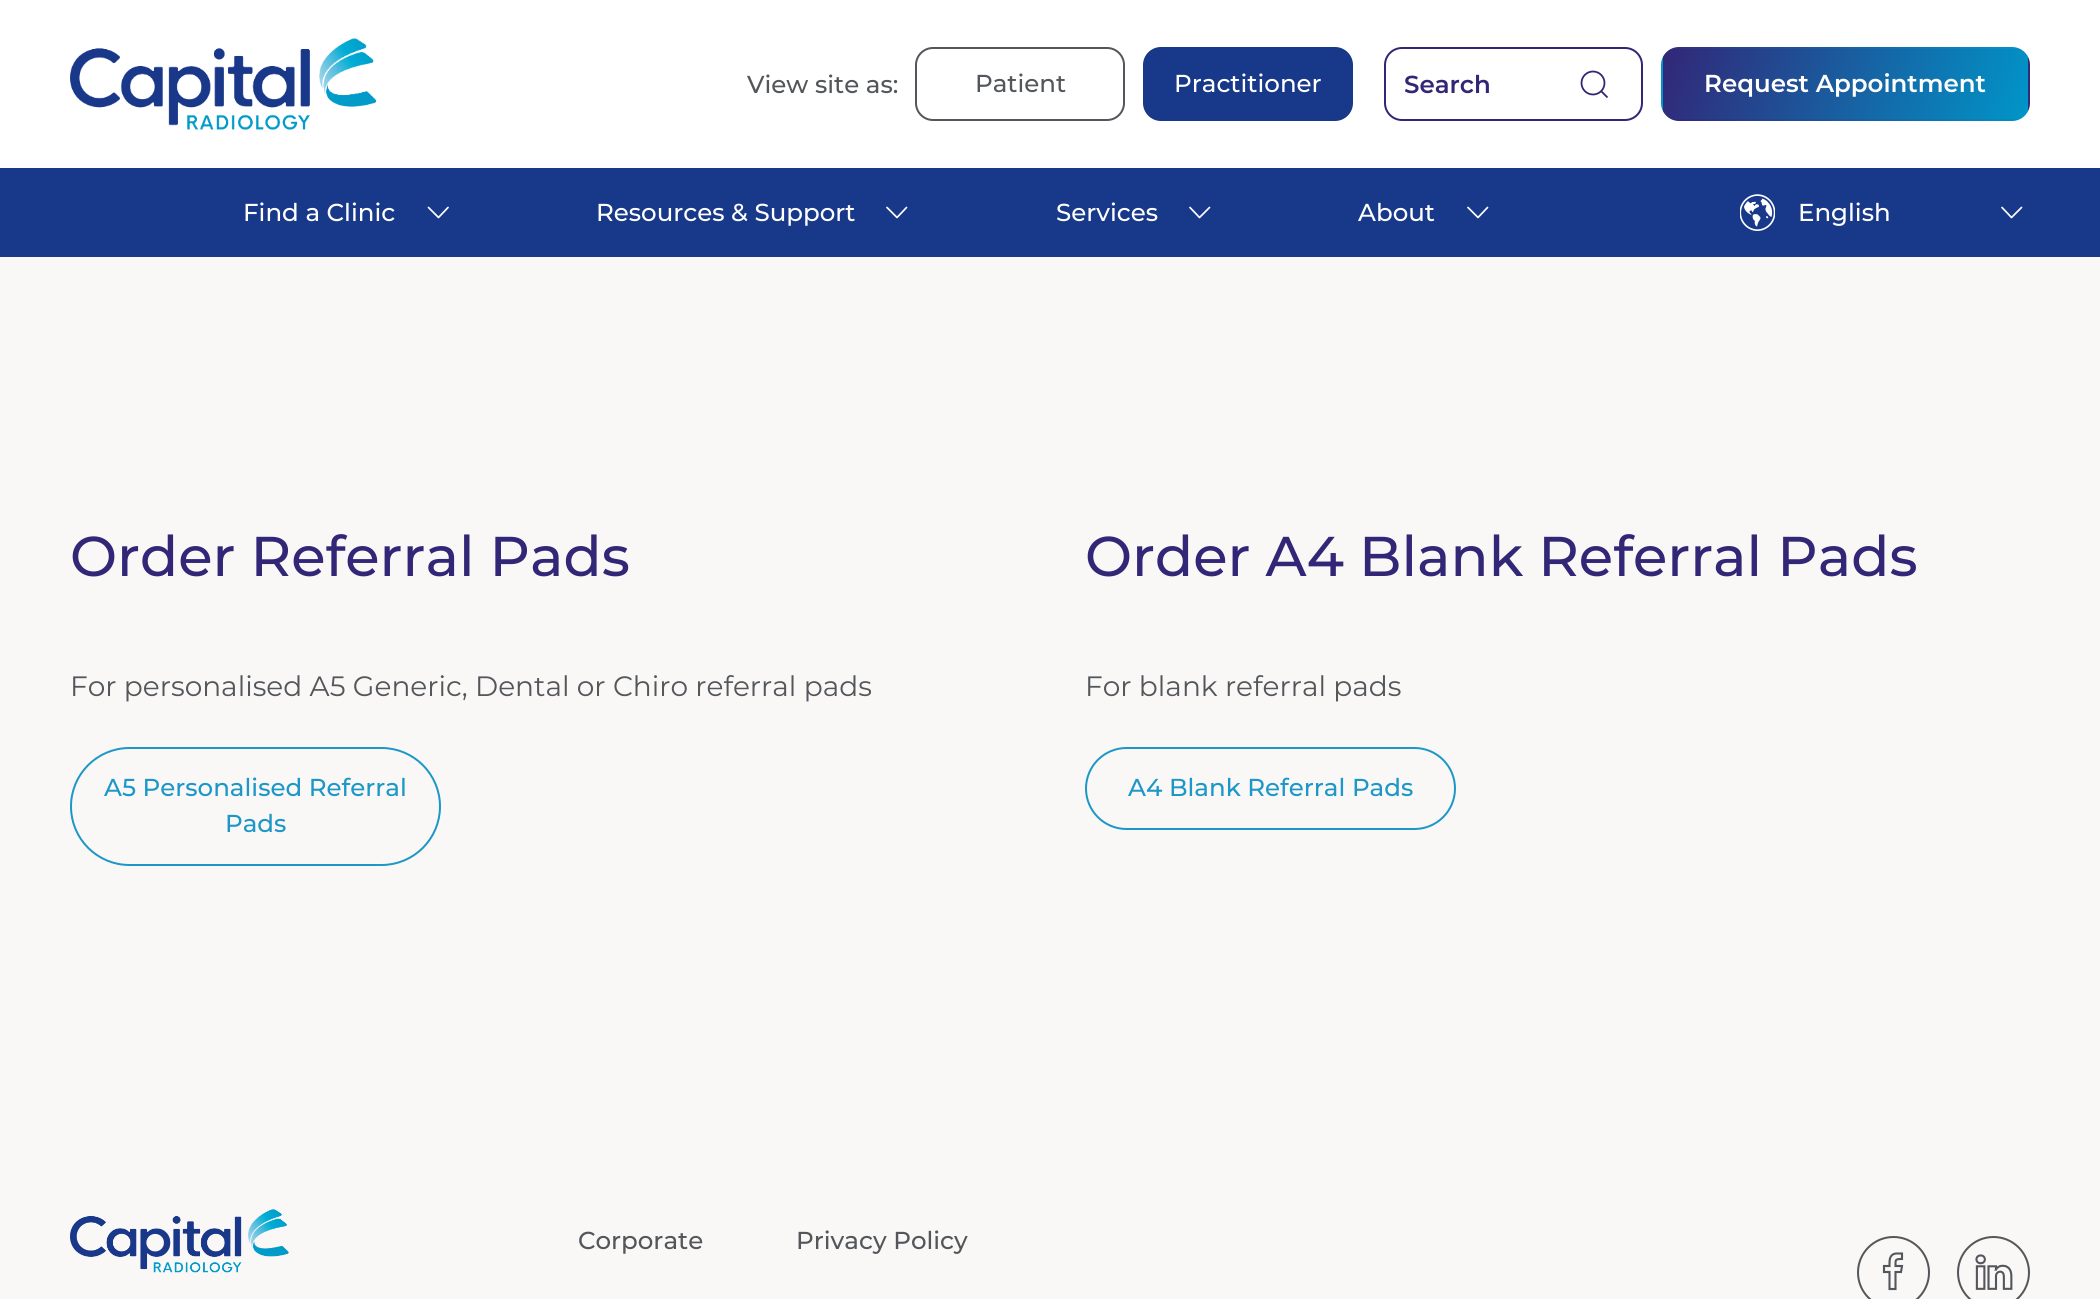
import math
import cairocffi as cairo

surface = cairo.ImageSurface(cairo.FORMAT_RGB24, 2100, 1299)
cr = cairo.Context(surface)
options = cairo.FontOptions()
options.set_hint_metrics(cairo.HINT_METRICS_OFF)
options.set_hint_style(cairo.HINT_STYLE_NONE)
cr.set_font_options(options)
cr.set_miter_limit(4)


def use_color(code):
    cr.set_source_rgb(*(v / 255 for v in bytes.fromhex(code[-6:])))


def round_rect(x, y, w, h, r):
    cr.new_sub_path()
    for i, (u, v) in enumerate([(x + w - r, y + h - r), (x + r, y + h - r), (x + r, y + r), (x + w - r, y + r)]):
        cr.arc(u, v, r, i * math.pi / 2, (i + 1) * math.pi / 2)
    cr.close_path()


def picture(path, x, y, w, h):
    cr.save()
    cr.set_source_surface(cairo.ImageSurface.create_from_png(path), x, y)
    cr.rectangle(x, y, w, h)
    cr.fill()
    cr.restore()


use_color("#ffffff")
cr.paint()
picture("img1.png", 70, 38, 307, 92)
cr.select_font_face("Montserrat Medium")
cr.set_font_size(24.5)
use_color("#53565a")
cr.move_to(747, 93)
cr.show_text("View site as:")
round_rect(916, 48, 208, 72, 17)
cr.stroke()
cr.move_to(975, 92)
cr.show_text("Patient")
use_color("#183889")
round_rect(1144, 48, 208, 72, 17)
cr.fill_preserve()
cr.stroke()
use_color("#ffffff")
cr.move_to(1174, 92)
cr.show_text("Practitioner")
round_rect(1385, 48, 257, 72, 17)
use_color("#322677")
cr.stroke()
cr.select_font_face("Montserrat SemiBold")
cr.move_to(1404, 93)
cr.show_text("Search")
cr.new_path()
cr.arc(1593, 83, 11.5, 0, 2 * math.pi)
cr.set_line_width(1.8)
cr.stroke()
cr.new_path()
cr.move_to(1601, 91)
cr.line_to(1607.5, 97.5)
cr.close_path()
cr.stroke()
cr.save()
round_rect(1661, 47, 369, 74, 18)
cr.clip()
gradient = cairo.LinearGradient(2018, 77, 1673, -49)
gradient.add_color_stop_rgba(0, 0, 0.588, 0.788, 1)
gradient.add_color_stop_rgba(1, 0.196, 0.149, 0.467, 1)
cr.set_source(gradient)
cr.rectangle(1663, 47, 365, 2)
cr.fill()
gradient = cairo.LinearGradient(1652, 147, 1307, 21)
gradient.add_color_stop_rgba(0, 0, 0.588, 0.788, 1)
gradient.add_color_stop_rgba(1, 0.196, 0.149, 0.467, 1)
cr.set_source(gradient)
cr.rectangle(1661, 49, 2, 70)
cr.fill()
gradient = cairo.LinearGradient(2018, 147, 1673, 21)
gradient.add_color_stop_rgba(0, 0, 0.588, 0.788, 1)
gradient.add_color_stop_rgba(1, 0.196, 0.149, 0.467, 1)
cr.set_source(gradient)
cr.rectangle(1663, 49, 365, 70)
cr.fill()
gradient = cairo.LinearGradient(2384, 147, 2038, 21)
gradient.add_color_stop_rgba(0, 0, 0.588, 0.788, 1)
gradient.add_color_stop_rgba(1, 0.196, 0.149, 0.467, 1)
cr.set_source(gradient)
cr.rectangle(2028, 49, 2, 70)
cr.fill()
gradient = cairo.LinearGradient(2018, 217, 1673, 91)
gradient.add_color_stop_rgba(0, 0, 0.588, 0.788, 1)
gradient.add_color_stop_rgba(1, 0.196, 0.149, 0.467, 1)
cr.set_source(gradient)
cr.rectangle(1663, 119, 365, 2)
cr.fill()
cr.restore()
use_color("#ffffff")
cr.move_to(1704, 92)
cr.show_text("Request Appointment")
use_color("#183889")
cr.rectangle(0, 168, 2100, 89)
cr.fill()
cr.select_font_face("Montserrat Medium")
use_color("#ffffff")
cr.move_to(243, 221)
cr.show_text("Find a Clinic")
cr.new_path()
cr.move_to(428.5, 207.5)
cr.line_to(438.5, 217.5)
cr.move_to(448, 207.5)
cr.line_to(438.5, 217.5)
cr.set_line_width(1.7)
cr.set_line_cap(cairo.LINE_CAP_ROUND)
cr.stroke()
cr.move_to(596, 221)
cr.show_text("Resources & Support")
cr.new_path()
cr.move_to(887, 207.5)
cr.line_to(897, 217.5)
cr.move_to(906.5, 207.5)
cr.line_to(897, 217.5)
cr.stroke()
cr.move_to(1056, 221)
cr.show_text("Services")
cr.new_path()
cr.move_to(1190, 207.5)
cr.line_to(1199.5, 217.5)
cr.move_to(1209.5, 207.5)
cr.line_to(1199.5, 217.5)
cr.stroke()
cr.move_to(1358, 221)
cr.show_text("About")
cr.new_path()
cr.move_to(1468, 207.5)
cr.line_to(1478, 217.5)
cr.move_to(1487.5, 207.5)
cr.line_to(1478, 217.5)
cr.stroke()
picture("img2.png", 1740, 194, 35, 37)
cr.move_to(1798, 221)
cr.show_text("English")
cr.new_path()
cr.move_to(2002, 207.5)
cr.line_to(2011.5, 217.5)
cr.move_to(2021.5, 207.5)
cr.line_to(2011.5, 217.5)
cr.stroke()
use_color("#f9f8f7")
cr.rectangle(0, 257, 2100, 1042)
cr.fill()
cr.set_font_size(56)
use_color("#322677")
cr.move_to(70, 576)
cr.show_text("Order Referral Pads")
cr.select_font_face("Montserrat")
cr.set_font_size(28)
use_color("#53565a")
cr.move_to(70, 696)
cr.show_text("For personalised A5 Generic, Dental or Chiro referral pads")
round_rect(71, 748, 369, 117, 58.5)
use_color("#1c97c7")
cr.set_line_width(2)
cr.set_line_cap(cairo.LINE_CAP_BUTT)
cr.stroke()
cr.select_font_face("Montserrat Medium")
cr.set_font_size(24.5)
cr.move_to(104, 796)
cr.show_text("A5 Personalised Referral")
cr.move_to(225, 832)
cr.show_text("Pads")
cr.set_font_size(56)
use_color("#322677")
cr.move_to(1085, 576)
cr.show_text("Order A4 Blank Referral Pads")
cr.select_font_face("Montserrat")
cr.set_font_size(28)
use_color("#53565a")
cr.move_to(1085, 696)
cr.show_text("For blank referral pads")
round_rect(1086, 748, 369, 81, 40.5)
use_color("#1c97c7")
cr.stroke()
cr.select_font_face("Montserrat Medium")
cr.set_font_size(24.5)
cr.move_to(1128, 796)
cr.show_text("A4 Blank Referral Pads")
picture("img3.png", 70, 1209, 219, 64)
use_color("#53565a")
cr.move_to(578, 1249)
cr.show_text("Corporate")
cr.move_to(796, 1249)
cr.show_text("Privacy Policy")
cr.new_path()
cr.arc(1893.5, 1272.5, 35.5, 0, 2 * math.pi)
cr.stroke()
cr.new_path()
cr.move_to(1895.5, 1272)
cr.line_to(1901, 1272)
cr.line_to(1902, 1266)
cr.line_to(1895.5, 1266)
cr.curve_to(1895.5, 1259.5, 1895, 1259, 1902, 1259)
cr.line_to(1902, 1253.5)
cr.line_to(1896, 1253.5)
cr.curve_to(1889, 1254.5, 1889.5, 1260.5, 1889.5, 1266)
cr.line_to(1884, 1266)
cr.line_to(1884, 1272)
cr.line_to(1889.5, 1272)
cr.line_to(1889.5, 1289)
cr.line_to(1895.5, 1289)
cr.close_path()
cr.set_line_width(2.1)
cr.stroke()
cr.arc(1993.5, 1272.5, 35.5, 0, 2 * math.pi)
cr.set_line_width(2)
cr.stroke()
picture("img4.png", 1975, 1254, 38, 36)
surface.write_to_png("result.png")
